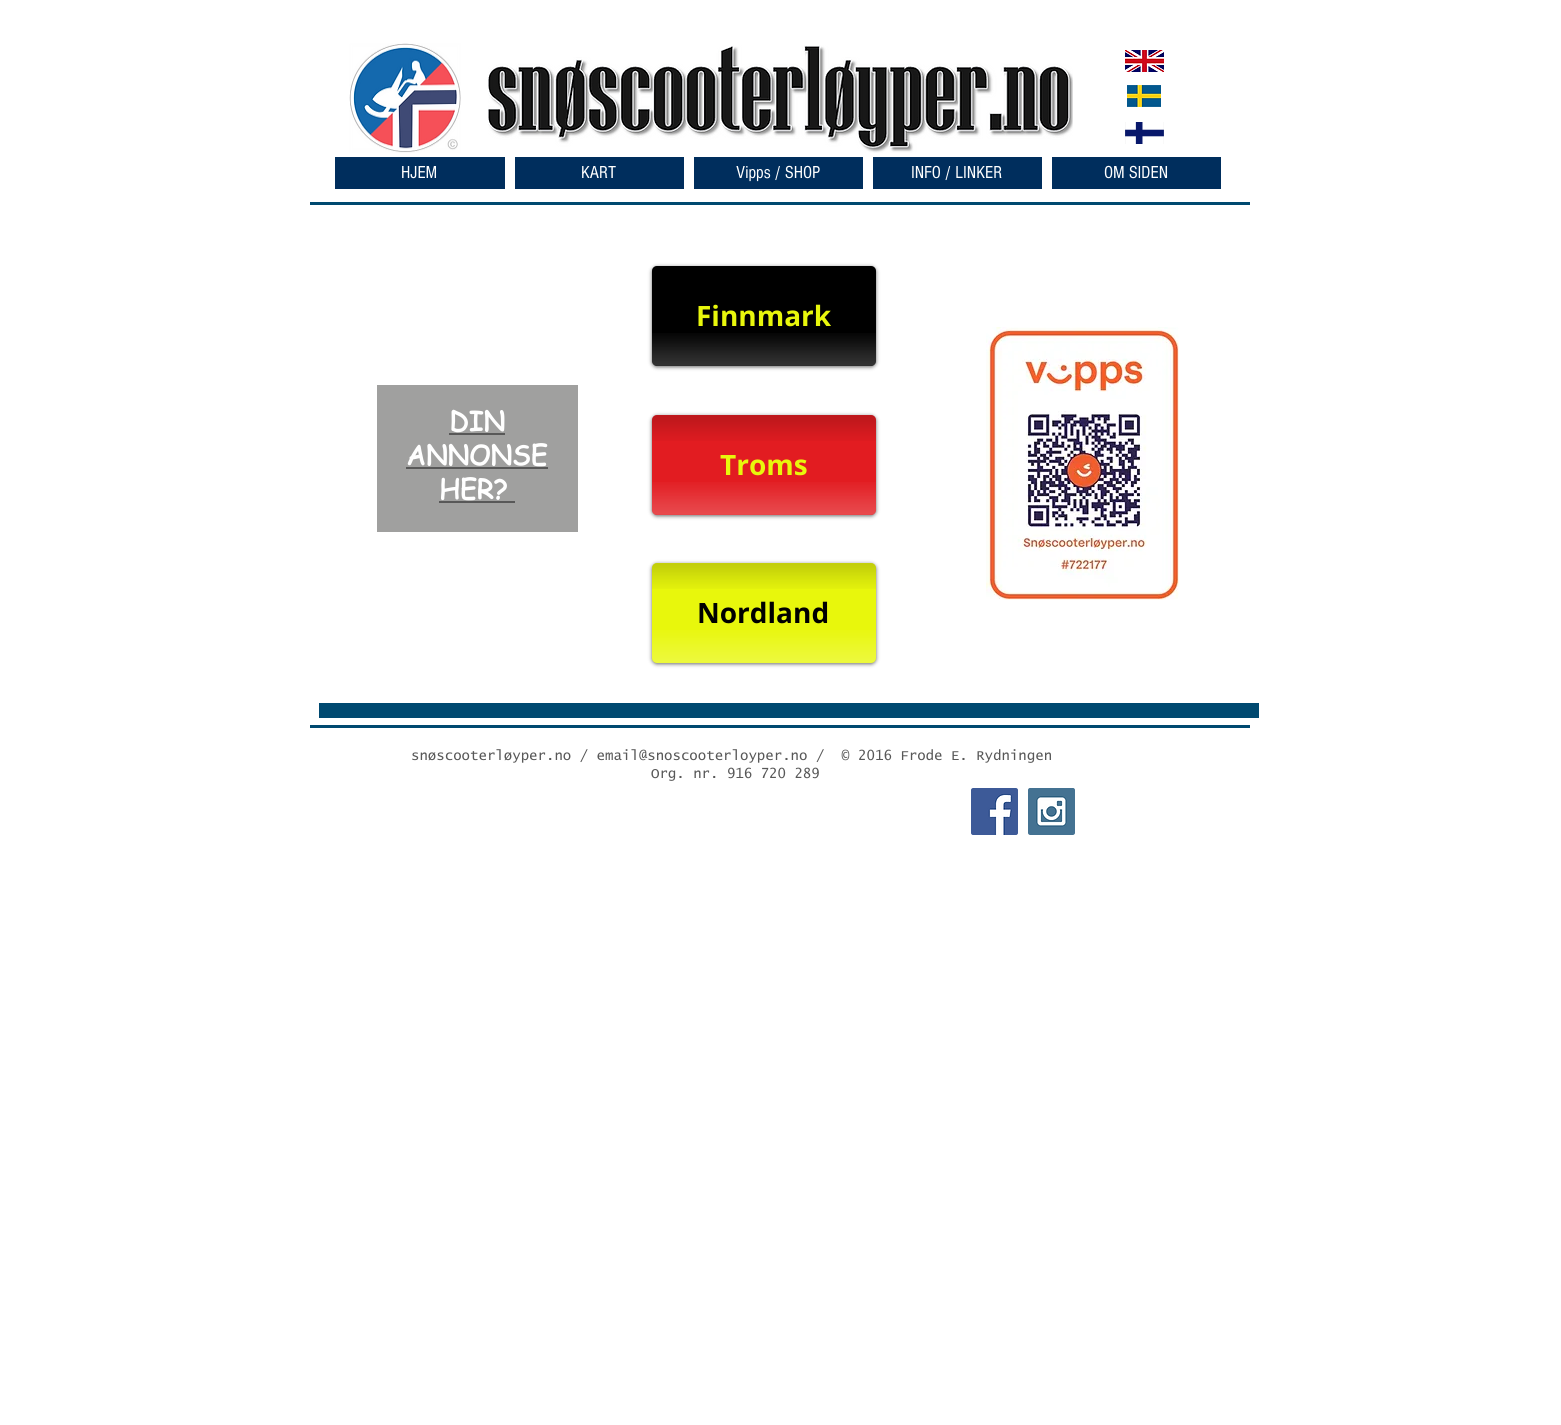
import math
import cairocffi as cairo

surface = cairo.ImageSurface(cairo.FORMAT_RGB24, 1561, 1425)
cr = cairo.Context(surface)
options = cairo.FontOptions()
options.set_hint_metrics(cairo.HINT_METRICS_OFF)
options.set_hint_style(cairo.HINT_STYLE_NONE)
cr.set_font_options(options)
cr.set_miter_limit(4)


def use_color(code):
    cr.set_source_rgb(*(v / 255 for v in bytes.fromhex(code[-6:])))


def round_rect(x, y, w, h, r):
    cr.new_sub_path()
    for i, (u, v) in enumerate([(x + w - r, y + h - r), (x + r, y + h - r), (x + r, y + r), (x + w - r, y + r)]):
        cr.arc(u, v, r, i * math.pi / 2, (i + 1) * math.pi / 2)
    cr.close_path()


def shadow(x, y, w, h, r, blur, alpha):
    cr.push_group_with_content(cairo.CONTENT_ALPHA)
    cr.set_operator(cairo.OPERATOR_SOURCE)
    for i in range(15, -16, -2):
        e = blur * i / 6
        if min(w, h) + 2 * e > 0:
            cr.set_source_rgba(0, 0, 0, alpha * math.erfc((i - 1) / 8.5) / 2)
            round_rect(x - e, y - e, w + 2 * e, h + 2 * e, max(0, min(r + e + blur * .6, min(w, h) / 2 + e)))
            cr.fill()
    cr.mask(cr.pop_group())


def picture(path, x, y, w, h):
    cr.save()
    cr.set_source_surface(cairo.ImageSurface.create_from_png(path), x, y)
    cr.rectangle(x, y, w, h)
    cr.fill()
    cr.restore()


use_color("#ffffff")
cr.paint()
picture("img1.png", 349, 43, 112, 110)
picture("img2.png", 488, 45, 585, 108)
picture("img3.png", 1125, 50, 39, 22)
picture("img4.png", 1127, 85, 34, 22)
picture("img5.png", 1125, 122, 39, 22)
use_color("#002e5d")
cr.rectangle(335, 157, 170, 32)
cr.fill()
cr.select_font_face("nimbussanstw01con")
cr.set_font_size(18)
use_color("#ffffff")
cr.move_to(401, 178)
cr.show_text("HJEM")
use_color("#002e5d")
cr.rectangle(515, 157, 169, 32)
cr.fill()
use_color("#ffffff")
cr.move_to(581, 178)
cr.show_text("KART")
use_color("#002e5d")
cr.rectangle(694, 157, 169, 32)
cr.fill()
use_color("#ffffff")
cr.move_to(736, 178)
cr.show_text("Vipps / SHOP")
use_color("#002e5d")
cr.rectangle(873, 157, 169, 32)
cr.fill()
use_color("#ffffff")
cr.move_to(911, 178)
cr.show_text("INFO / LINKER")
use_color("#002e5d")
cr.rectangle(1052, 157, 169, 32)
cr.fill()
use_color("#ffffff")
cr.move_to(1104, 178)
cr.show_text("OM SIDEN")
use_color("#004970")
cr.rectangle(310, 202, 940, 3)
cr.fill()
use_color("#000000")
shadow(652, 267, 224, 100, 5, 2, 0.6)
use_color("#000000")
round_rect(652, 266, 224, 100, 5)
cr.fill()
picture("img6.png", 652, 266, 224, 4)
picture("img7.png", 652, 333, 224, 33)
cr.select_font_face("Open Sans", cairo.FONT_SLANT_NORMAL, cairo.FONT_WEIGHT_BOLD)
cr.set_font_size(28)
use_color("#e8f70c")
cr.move_to(696, 326)
cr.show_text("Finnmark")
use_color("#a0a09f")
cr.rectangle(377, 385, 201, 147)
cr.fill()
cr.select_font_face("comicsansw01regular", cairo.FONT_SLANT_NORMAL, cairo.FONT_WEIGHT_BOLD)
cr.set_font_size(27)
use_color("#ffffff")
cr.move_to(449, 431)
cr.show_text("DIN")
use_color("#585858")
cr.rectangle(449, 433, 56, 2)
cr.fill()
use_color("#ffffff")
cr.move_to(406, 465)
cr.show_text("ANNONSE")
use_color("#585858")
cr.rectangle(406, 467, 142, 2)
cr.fill()
use_color("#ffffff")
cr.move_to(439, 499)
cr.show_text("HER?")
use_color("#585858")
cr.rectangle(439, 501, 76, 2)
cr.fill()
use_color("#000000")
shadow(652, 416, 224, 100, 5, 2, 0.6)
use_color("#e21c21")
round_rect(652, 415, 224, 100, 5)
cr.fill()
picture("img8.png", 652, 415, 224, 26)
picture("img9.png", 652, 482, 224, 33)
cr.select_font_face("Open Sans", cairo.FONT_SLANT_NORMAL, cairo.FONT_WEIGHT_BOLD)
cr.set_font_size(28)
use_color("#e8f70c")
cr.move_to(720, 475)
cr.show_text("Troms")
picture("img10.png", 986, 327, 193, 273)
use_color("#000000")
shadow(652, 564, 224, 100, 5, 2, 0.6)
use_color("#e8f70c")
round_rect(652, 563, 224, 100, 5)
cr.fill()
picture("img11.png", 652, 563, 224, 26)
picture("img12.png", 652, 630, 224, 33)
use_color("#000000")
cr.move_to(697, 623)
cr.show_text("Nordland")
use_color("#004970")
cr.rectangle(319, 703, 940, 15)
cr.fill()
cr.rectangle(310, 725, 940, 3)
cr.fill()
cr.select_font_face("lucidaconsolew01")
cr.set_font_size(14)
use_color("#585858")
cr.move_to(411, 760)
cr.show_text("snøscooterløyper.no / email@snoscooterloyper.no /  © 2016 Frode E. Rydningen")
cr.move_to(651, 778)
cr.show_text("Org. nr. 916 720 289")
picture("img13.png", 971, 788, 47, 47)
picture("img14.png", 1028, 788, 47, 47)
surface.write_to_png("result.png")
